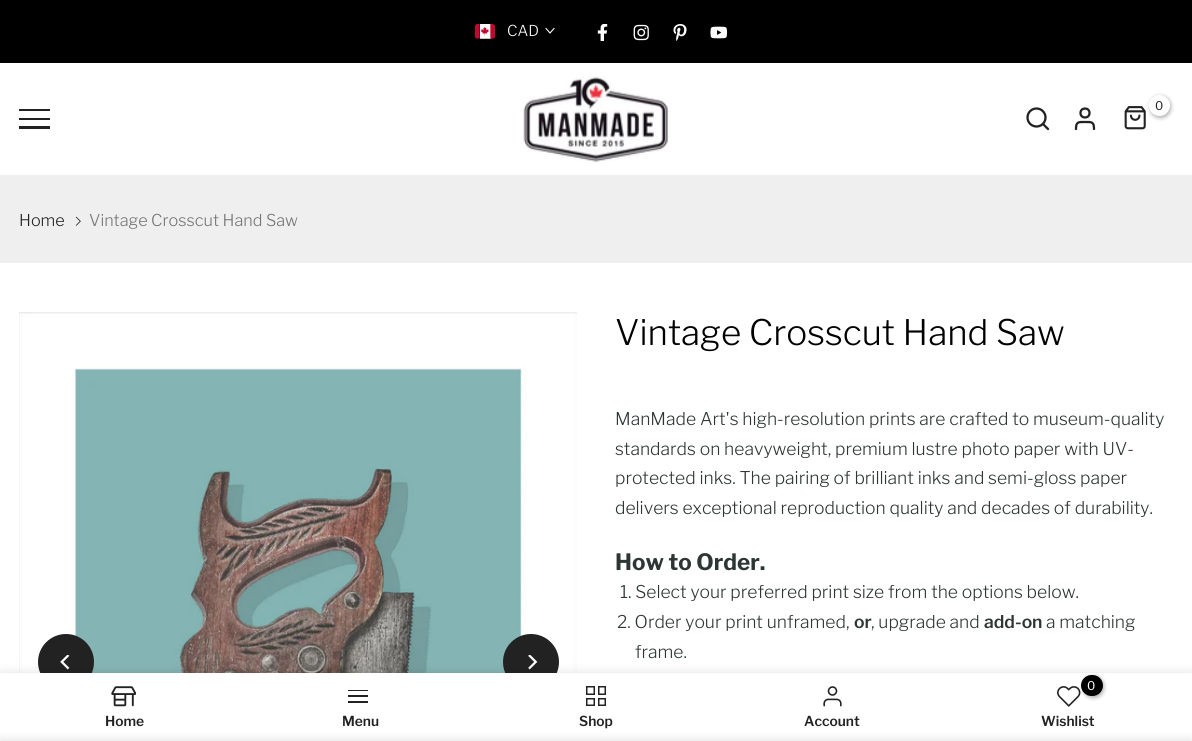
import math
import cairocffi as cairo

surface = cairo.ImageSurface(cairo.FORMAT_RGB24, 1192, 741)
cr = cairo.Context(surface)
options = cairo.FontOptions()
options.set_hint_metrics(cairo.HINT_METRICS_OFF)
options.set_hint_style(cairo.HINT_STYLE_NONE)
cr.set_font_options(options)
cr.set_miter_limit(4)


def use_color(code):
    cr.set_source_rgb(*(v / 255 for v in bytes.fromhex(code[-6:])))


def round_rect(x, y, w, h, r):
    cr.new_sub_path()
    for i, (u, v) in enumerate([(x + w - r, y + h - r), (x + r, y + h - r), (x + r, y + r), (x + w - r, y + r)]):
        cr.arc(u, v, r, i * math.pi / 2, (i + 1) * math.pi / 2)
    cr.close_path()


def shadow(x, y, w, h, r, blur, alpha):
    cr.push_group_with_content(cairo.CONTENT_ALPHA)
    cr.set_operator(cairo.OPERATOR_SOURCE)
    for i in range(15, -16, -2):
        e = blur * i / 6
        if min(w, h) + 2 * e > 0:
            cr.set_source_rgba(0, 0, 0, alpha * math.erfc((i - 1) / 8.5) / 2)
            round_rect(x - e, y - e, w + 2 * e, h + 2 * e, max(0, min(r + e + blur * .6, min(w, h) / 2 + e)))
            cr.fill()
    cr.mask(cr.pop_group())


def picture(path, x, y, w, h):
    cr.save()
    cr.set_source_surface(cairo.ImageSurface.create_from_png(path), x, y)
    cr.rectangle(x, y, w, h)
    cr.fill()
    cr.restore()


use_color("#ffffff")
cr.paint()
use_color("#000000")
cr.rectangle(0, 0, 1192, 63)
cr.fill()
picture("img1.png", 475, 24, 20, 15)
cr.select_font_face("Libre Franklin Light")
cr.set_font_size(15)
use_color("#ffffff")
cr.move_to(507, 36)
cr.show_text("CAD")
cr.new_path()
cr.move_to(554, 28.5)
cr.line_to(550, 33)
cr.line_to(546, 28.5)
cr.set_line_width(1.1)
cr.set_line_cap(cairo.LINE_CAP_SQUARE)
cr.stroke()
picture("img2.png", 597, 24, 11, 17)
picture("img3.png", 633, 24, 16, 17)
picture("img4.png", 673, 24, 14, 17)
picture("img5.png", 710, 26, 18, 13)
picture("img6.png", 523, 76, 147, 88)
picture("img7.png", 1124, 106, 22, 24)
use_color("#000000")
shadow(1150, 96, 21, 22, 10.5, 2, 0.3)
use_color("#ffffff")
cr.arc(1159.5, 105.5, 10.5, 0, 2 * math.pi)
cr.fill()
cr.select_font_face("Libre Franklin")
cr.set_font_size(12)
use_color("#222222")
cr.move_to(1155, 110)
cr.show_text("0")
cr.new_path()
cr.arc(1036.5, 117.5, 9, 0, 2 * math.pi)
cr.set_line_width(2.3)
cr.set_line_cap(cairo.LINE_CAP_BUTT)
cr.stroke()
cr.new_path()
cr.move_to(1048, 129)
cr.line_to(1043, 124)
cr.move_to(1094, 129)
cr.curve_to(1094, 121.5, 1091.5, 122, 1085, 122)
cr.curve_to(1078.5, 122, 1076, 121.5, 1076, 129)
cr.set_line_cap(cairo.LINE_CAP_ROUND)
cr.set_line_join(cairo.LINE_JOIN_ROUND)
cr.stroke()
cr.arc(1085, 113, 4.5, 0, 2 * math.pi)
cr.set_line_cap(cairo.LINE_CAP_BUTT)
cr.set_line_join(cairo.LINE_JOIN_MITER)
cr.stroke()
cr.rectangle(19, 109, 31, 2)
cr.fill()
cr.rectangle(19, 118, 31, 2)
cr.fill()
cr.rectangle(19, 126, 31, 3)
cr.fill()
use_color("#efefef")
cr.rectangle(0, 175, 1192, 88)
cr.fill()
cr.select_font_face("Libre Franklin Light")
cr.set_font_size(16.25)
use_color("#222222")
cr.move_to(19, 226)
cr.show_text("Home")
picture("img8.png", 75, 216, 6, 10)
use_color("#747474")
cr.move_to(89, 226)
cr.show_text("Vintage Crosscut Hand Saw")
picture("img9.png", 19, 312, 558, 361)
use_color("#222222")
cr.arc(66, 662, 28, 0, 2 * math.pi)
cr.fill()
picture("img10.png", 60, 655, 10, 15)
cr.arc(531, 662, 28, 0, 2 * math.pi)
cr.fill()
picture("img11.png", 528, 655, 10, 15)
cr.set_font_size(35)
use_color("#000000")
cr.move_to(615, 345)
cr.show_text("Vintage Crosscut Hand Saw")
cr.set_font_size(17.5)
use_color("#2d3635")
cr.move_to(615, 425)
cr.show_text("ManMade Art's high-resolution prints are crafted to museum-quality")
cr.move_to(615, 455)
cr.show_text("standards on heavyweight, premium lustre photo paper with UV-")
cr.move_to(615, 484)
cr.show_text("protected inks. The pairing of brilliant inks and semi-gloss paper")
cr.move_to(615, 514)
cr.show_text("delivers exceptional reproduction quality and decades of durability.")
cr.select_font_face("Libre Franklin", cairo.FONT_SLANT_NORMAL, cairo.FONT_WEIGHT_BOLD)
cr.set_font_size(22.5)
cr.move_to(615, 570)
cr.show_text("How to Order.")
cr.select_font_face("Libre Franklin Light")
cr.set_font_size(17.5)
cr.move_to(620, 598)
cr.show_text("1. Select your preferred print size from the options below.")
cr.move_to(617, 628)
cr.show_text("2. Order your print unframed,")
cr.select_font_face("Libre Franklin SemiBold")
cr.move_to(854, 628)
cr.show_text("or")
cr.select_font_face("Libre Franklin Light")
cr.move_to(871, 628)
cr.show_text(", upgrade and")
cr.select_font_face("Libre Franklin SemiBold")
cr.move_to(984, 628)
cr.show_text("add-on")
cr.select_font_face("Libre Franklin Light")
cr.move_to(1046, 628)
cr.show_text("a matching")
cr.move_to(635, 658)
cr.show_text("frame.")
use_color("#000000")
shadow(0, 673, 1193, 68, 0, 5.5, 0.12)
use_color("#ffffff")
cr.rectangle(0, 673, 1192, 68)
cr.fill()
picture("img12.png", 111, 686, 25, 21)
cr.select_font_face("Libre Franklin SemiBold")
cr.set_font_size(13.75)
use_color("#222222")
cr.move_to(105, 726)
cr.show_text("Home")
cr.rectangle(348, 690, 20, 1)
cr.fill()
cr.rectangle(348, 695, 20, 2)
cr.fill()
cr.rectangle(348, 701, 20, 2)
cr.fill()
cr.move_to(342, 726)
cr.show_text("Menu")
cr.rectangle(586.75, 686.75, 7.5, 7.5)
cr.set_line_width(1.5)
cr.stroke()
cr.rectangle(598.75, 686.75, 6.5, 7.5)
cr.stroke()
cr.rectangle(586.75, 698.75, 7.5, 6.5)
cr.stroke()
cr.rectangle(598.75, 698.75, 6.5, 6.5)
cr.stroke()
cr.move_to(579, 726)
cr.show_text("Shop")
picture("img13.png", 823, 686, 19, 21)
cr.move_to(804, 726)
cr.show_text("Account")
picture("img14.png", 1057, 686, 24, 21)
use_color("#000000")
shadow(1083, 676, 21, 22, 10.5, 2, 0.3)
use_color("#000000")
round_rect(1081, 675, 22, 21, 10.5)
cr.fill()
cr.select_font_face("Libre Franklin")
cr.set_font_size(12)
use_color("#ffffff")
cr.move_to(1087, 690)
cr.show_text("0")
cr.select_font_face("Libre Franklin SemiBold")
cr.set_font_size(13.75)
use_color("#222222")
cr.move_to(1041, 726)
cr.show_text("Wishlist")
use_color("#000000")
shadow(0, 741, 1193, 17, 0, 5.5, 0.14)
surface.write_to_png("result.png")
